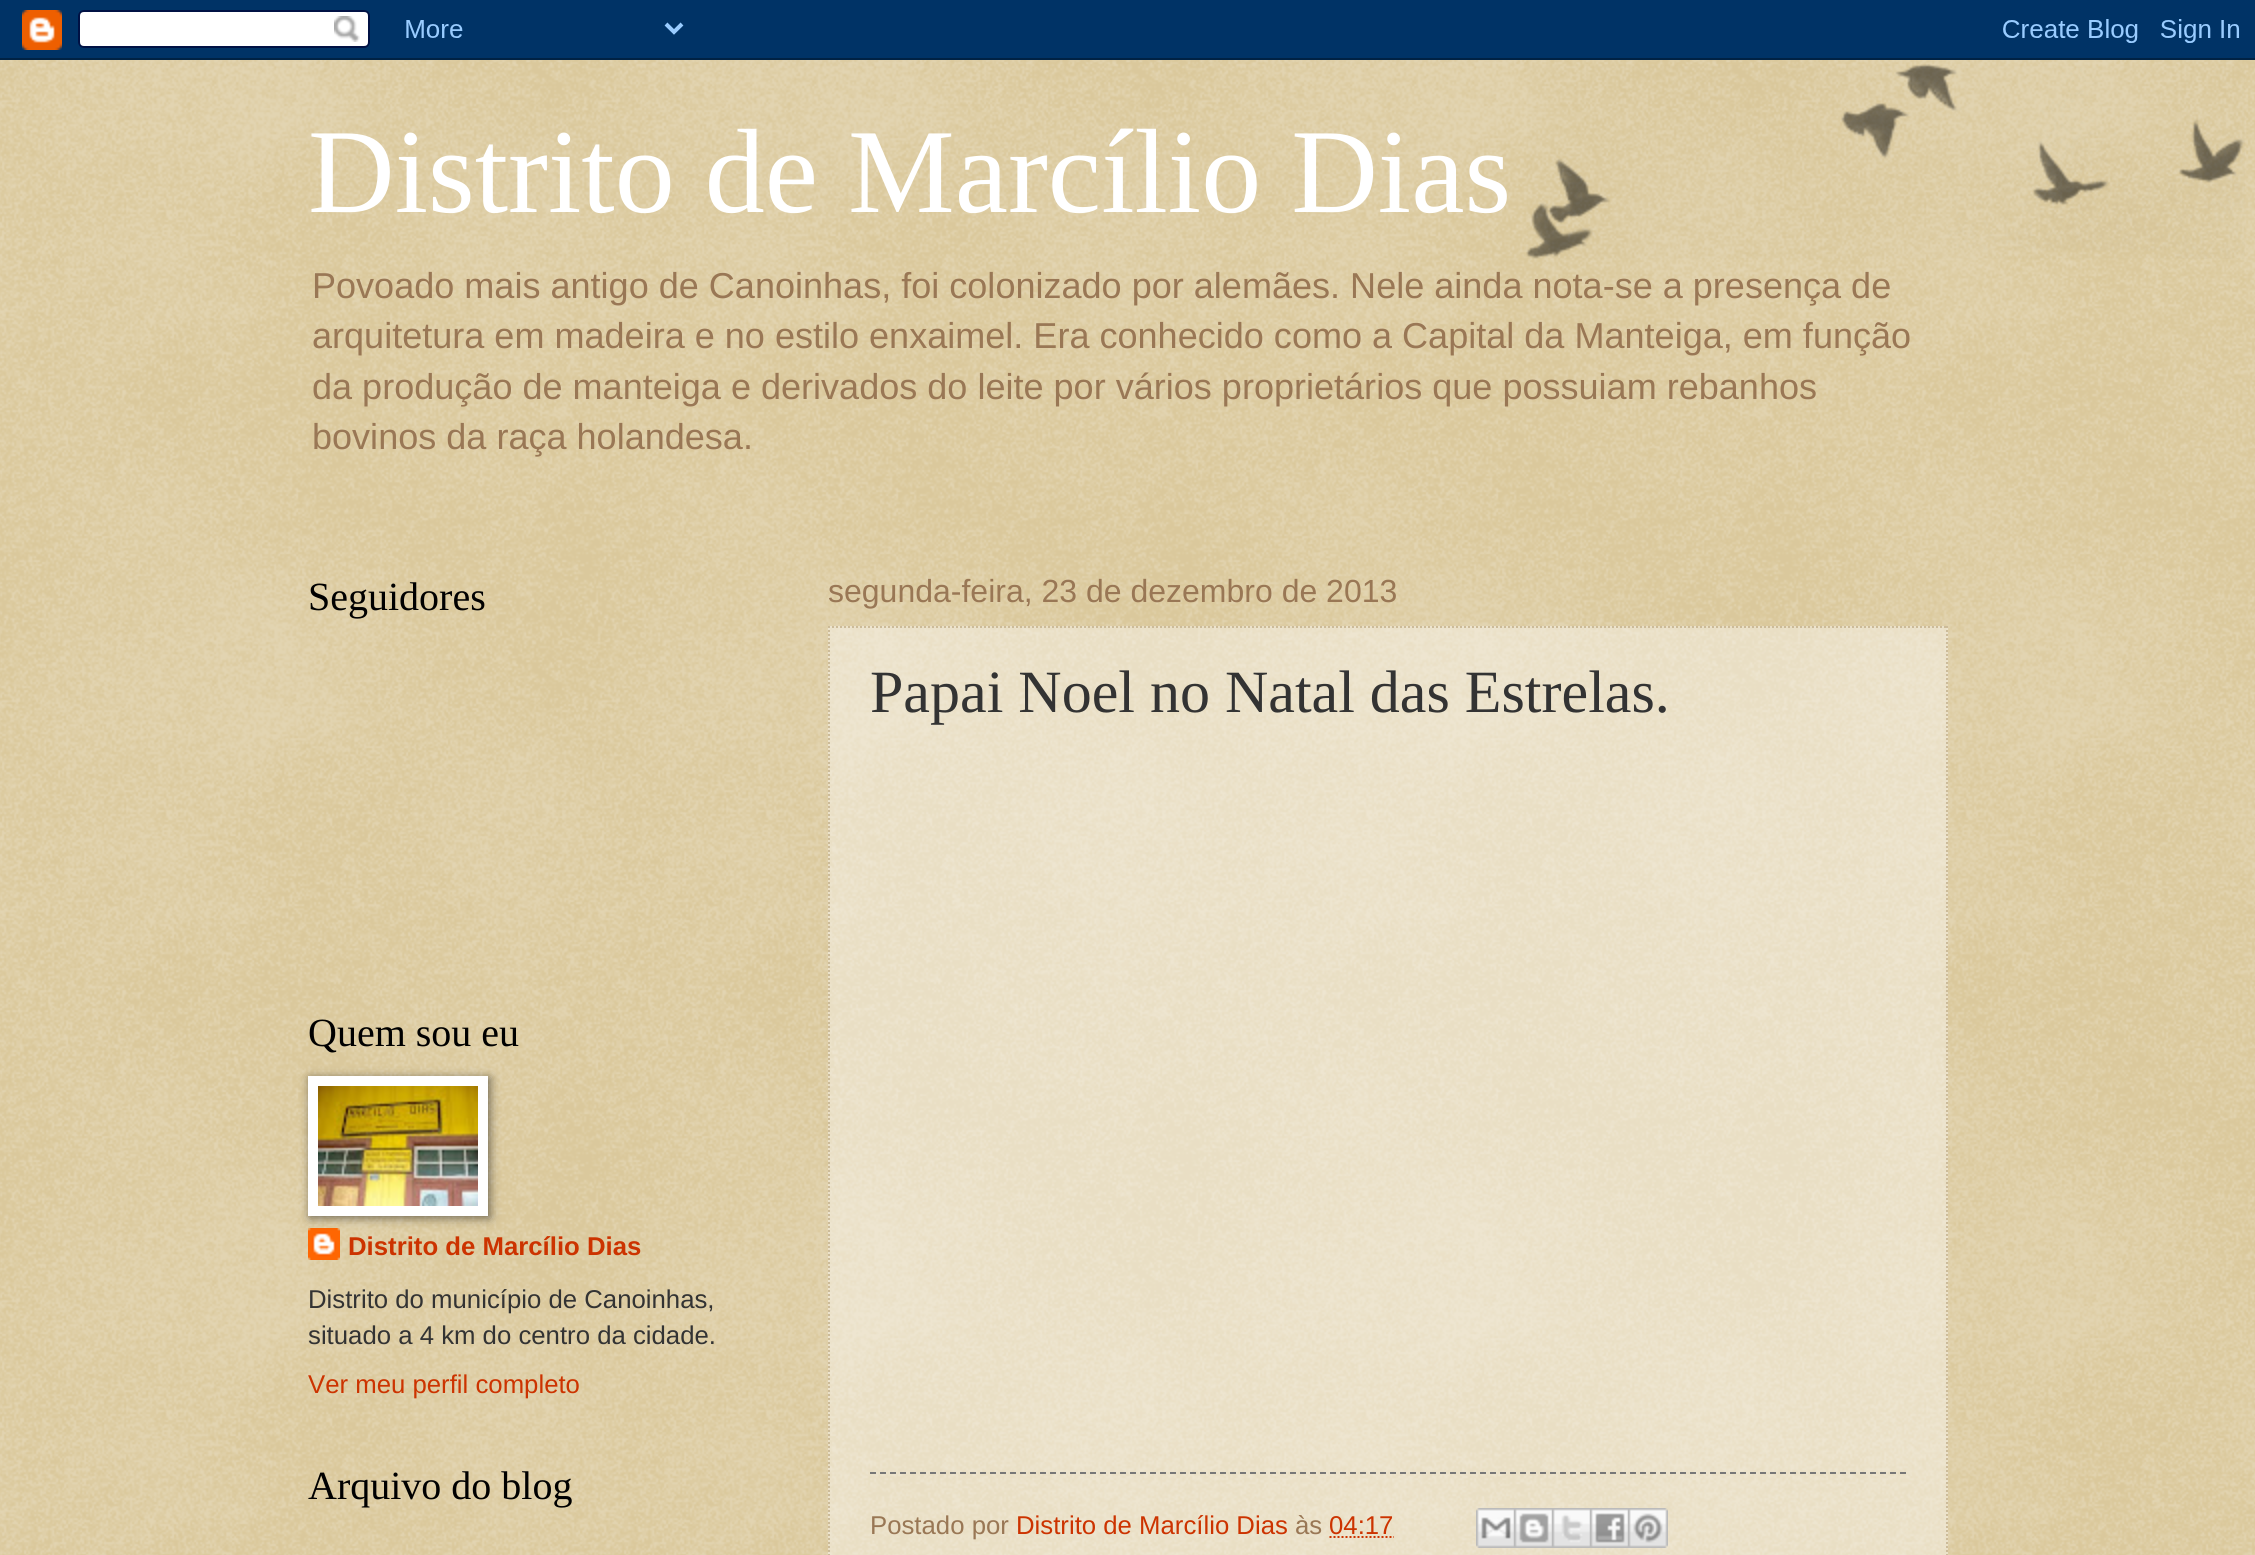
import math
import cairocffi as cairo

surface = cairo.ImageSurface(cairo.FORMAT_RGB24, 2255, 1555)
cr = cairo.Context(surface)
options = cairo.FontOptions()
options.set_hint_metrics(cairo.HINT_METRICS_OFF)
options.set_hint_style(cairo.HINT_STYLE_NONE)
cr.set_font_options(options)
cr.set_miter_limit(4)


def use_color(code):
    cr.set_source_rgb(*(v / 255 for v in bytes.fromhex(code[-6:])))


def round_rect(x, y, w, h, r):
    cr.new_sub_path()
    for i, (u, v) in enumerate([(x + w - r, y + h - r), (x + r, y + h - r), (x + r, y + r), (x + w - r, y + r)]):
        cr.arc(u, v, r, i * math.pi / 2, (i + 1) * math.pi / 2)
    cr.close_path()


def shadow(x, y, w, h, r, blur, alpha):
    cr.push_group_with_content(cairo.CONTENT_ALPHA)
    cr.set_operator(cairo.OPERATOR_SOURCE)
    for i in range(15, -16, -2):
        e = blur * i / 6
        if min(w, h) + 2 * e > 0:
            cr.set_source_rgba(0, 0, 0, alpha * math.erfc((i - 1) / 8.5) / 2)
            round_rect(x - e, y - e, w + 2 * e, h + 2 * e, max(0, min(r + e + blur * .6, min(w, h) / 2 + e)))
            cr.fill()
    cr.mask(cr.pop_group())


def picture(path, x, y, w, h):
    cr.save()
    cr.set_source_surface(cairo.ImageSurface.create_from_png(path), x, y)
    cr.rectangle(x, y, w, h)
    cr.fill()
    cr.restore()


use_color("#c0a154")
cr.paint()
picture("img1.png", 0, 60, 2255, 1495)
picture("img2.png", 0, 0, 2255, 60)
picture("img3.png", 1526, 64, 719, 195)
cr.select_font_face("Liberation Serif")
cr.set_font_size(120)
use_color("#ffffff")
cr.move_to(308, 212)
cr.show_text("Distrito de Marcílio Dias")
cr.select_font_face("Liberation Sans")
cr.set_font_size(36.05)
use_color("#997755")
cr.move_to(312, 298)
cr.show_text("Povoado mais antigo de Canoinhas, foi colonizado por alemães. Nele ainda nota-se a presença de")
cr.move_to(312, 348)
cr.show_text("arquitetura em madeira e no estilo enxaimel. Era conhecido como a Capital da Manteiga, em função")
cr.move_to(312, 399)
cr.show_text("da produção de manteiga e derivados do leite por vários proprietários que possuiam rebanhos")
cr.move_to(312, 449)
cr.show_text("bovinos da raça holandesa.")
cr.select_font_face("Liberation Serif")
cr.set_font_size(40)
use_color("#000000")
cr.move_to(308, 610)
cr.show_text("Seguidores")
cr.move_to(308, 1046)
cr.show_text("Quem sou eu")
picture("img5.png", 308, 1228, 32, 32)
use_color("#000000")
shadow(310, 1078, 180, 140, 0, 5, 0.5)
use_color("#ffffff")
cr.rectangle(308, 1076, 180, 140)
cr.fill()
picture("img4.png", 318, 1086, 160, 120)
cr.select_font_face("Liberation Sans", cairo.FONT_SLANT_NORMAL, cairo.FONT_WEIGHT_BOLD)
cr.set_font_size(25.75)
use_color("#cc3300")
cr.move_to(348, 1255)
cr.show_text("Distrito de Marcílio Dias")
cr.select_font_face("Liberation Sans")
use_color("#333333")
cr.move_to(308, 1308)
cr.show_text("Distrito do município de Canoinhas,")
cr.move_to(308, 1344)
cr.show_text("situado a 4 km do centro da cidade.")
use_color("#cc3300")
cr.move_to(308, 1393)
cr.show_text("Ver meu perfil completo")
cr.select_font_face("Liberation Serif")
cr.set_font_size(40)
use_color("#000000")
cr.move_to(308, 1499)
cr.show_text("Arquivo do blog")
cr.select_font_face("Liberation Sans")
cr.set_font_size(32)
use_color("#997755")
cr.move_to(828, 602)
cr.show_text("segunda-feira, 23 de dezembro de 2013")
cr.set_source_rgba(1, 1, 1, 0.4)
cr.rectangle(828, 626, 1120, 929)
cr.fill()
cr.new_path()
cr.move_to(828, 627)
cr.line_to(1948, 627)
use_color("#ccbb99")
cr.set_dash([2, 2])
cr.stroke()
cr.new_path()
cr.move_to(1947, 626)
cr.line_to(1947, 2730)
cr.stroke()
cr.new_path()
cr.move_to(829, 626)
cr.line_to(829, 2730)
cr.stroke()
cr.select_font_face("Liberation Serif")
cr.set_font_size(60)
use_color("#333333")
cr.move_to(870, 712)
cr.show_text("Papai Noel no Natal das Estrelas.")
cr.new_path()
cr.move_to(870, 1473)
cr.line_to(1906, 1473)
use_color("#777777")
cr.set_dash([6, 4])
cr.stroke()
cr.select_font_face("Liberation Sans")
cr.set_font_size(25.75)
use_color("#997755")
cr.move_to(870, 1534)
cr.show_text("Postado por")
use_color("#cc3300")
cr.move_to(1016, 1534)
cr.show_text("Distrito de Marcílio Dias")
use_color("#997755")
cr.move_to(1295, 1534)
cr.show_text("às")
use_color("#cc3300")
cr.move_to(1329, 1534)
cr.show_text("04:17")
cr.new_path()
cr.move_to(1329.5, 1537)
cr.line_to(1394, 1537)
cr.set_dash([2, 2])
cr.stroke()
picture("img6.png", 1476, 1508, 38, 40)
picture("img7.png", 1514, 1508, 38, 40)
picture("img8.png", 1552, 1508, 38, 40)
picture("img9.png", 1590, 1508, 38, 40)
picture("img10.png", 1628, 1508, 40, 40)
surface.write_to_png("result.png")
